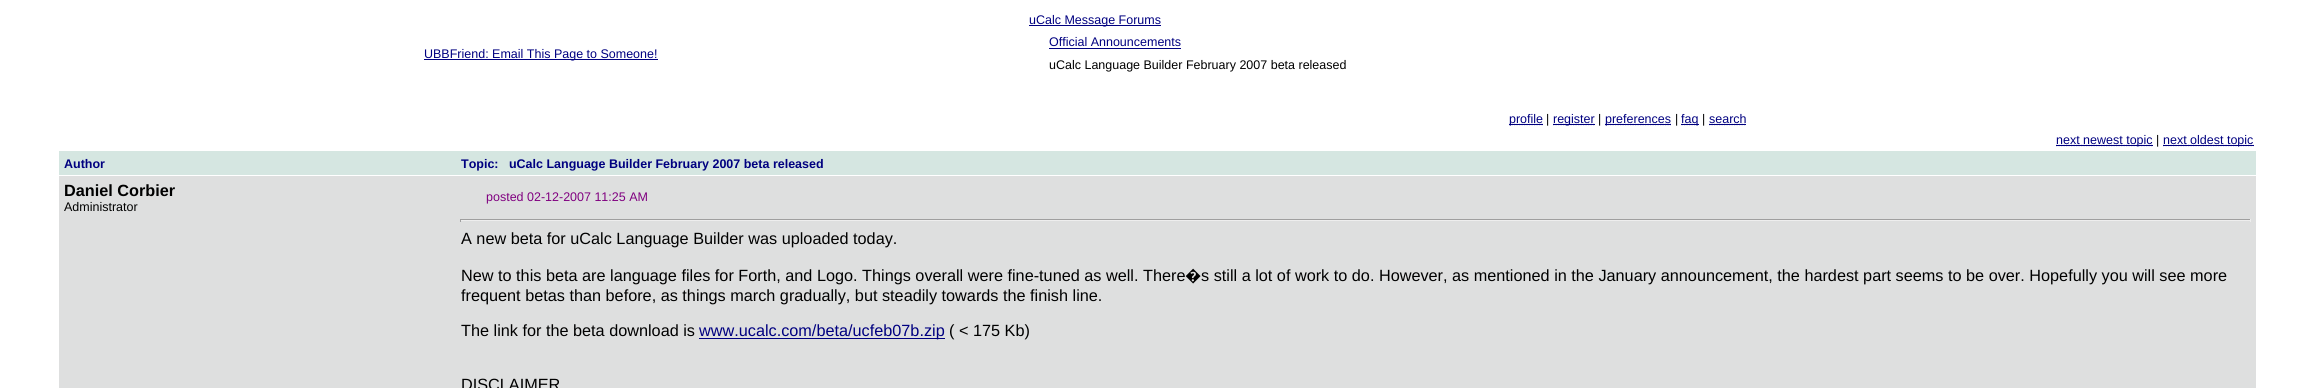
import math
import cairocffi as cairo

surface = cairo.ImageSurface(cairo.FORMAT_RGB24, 2314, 388)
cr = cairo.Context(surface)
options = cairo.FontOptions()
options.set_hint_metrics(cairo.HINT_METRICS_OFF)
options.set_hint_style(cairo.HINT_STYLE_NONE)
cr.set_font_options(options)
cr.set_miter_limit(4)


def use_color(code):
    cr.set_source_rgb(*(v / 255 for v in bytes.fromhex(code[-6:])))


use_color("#ffffff")
cr.paint()
use_color("#000080")
cr.rectangle(424, 59, 234, 1)
cr.fill()
cr.select_font_face("Liberation Sans")
cr.set_font_size(12.5)
cr.move_to(424, 58)
cr.show_text("UBBFriend: Email This Page to Someone!")
cr.rectangle(1029, 25, 132, 1)
cr.fill()
cr.move_to(1029, 24)
cr.show_text("uCalc Message Forums")
cr.move_to(1049, 46)
cr.show_text("Official Announcements")
cr.rectangle(1049, 48, 132, 1)
cr.fill()
use_color("#000000")
cr.move_to(1049, 69)
cr.show_text("uCalc Language Builder February 2007 beta released")
cr.new_path()
cr.move_to(1509, 124.5)
cr.line_to(1543, 124.5)
use_color("#000080")
cr.set_line_width(1.2)
cr.set_dash([1.25, 1.25])
cr.stroke()
cr.rectangle(1509, 124, 34, 1)
cr.fill()
cr.move_to(1509, 123)
cr.show_text("profile")
use_color("#000000")
cr.move_to(1546, 123)
cr.show_text("|")
cr.new_path()
cr.move_to(1553, 124.5)
cr.line_to(1595, 124.5)
use_color("#000080")
cr.stroke()
cr.rectangle(1554, 124, 41, 1)
cr.fill()
cr.move_to(1553, 123)
cr.show_text("register")
use_color("#000000")
cr.move_to(1598, 123)
cr.show_text("|")
cr.new_path()
cr.move_to(1605, 124.5)
cr.line_to(1671, 124.5)
use_color("#000080")
cr.stroke()
cr.rectangle(1605, 124, 66, 1)
cr.fill()
cr.move_to(1605, 123)
cr.show_text("preferences")
use_color("#000000")
cr.move_to(1675, 123)
cr.show_text("|")
cr.new_path()
cr.move_to(1681.5, 124.5)
cr.line_to(1698.5, 124.5)
use_color("#000080")
cr.stroke()
cr.rectangle(1681, 124, 18, 1)
cr.fill()
cr.move_to(1681, 123)
cr.show_text("faq")
use_color("#000000")
cr.move_to(1702, 123)
cr.show_text("|")
cr.new_path()
cr.move_to(1709, 124.5)
cr.line_to(1746.5, 124.5)
use_color("#000080")
cr.stroke()
cr.move_to(1709, 123)
cr.show_text("search")
cr.rectangle(1709, 124, 37, 1)
cr.fill()
cr.new_path()
cr.move_to(2056, 145.5)
cr.line_to(2153, 145.5)
cr.stroke()
cr.rectangle(2056, 145, 97, 1)
cr.fill()
cr.move_to(2056, 144)
cr.show_text("next newest topic")
use_color("#000000")
cr.move_to(2156, 144)
cr.show_text("|")
cr.new_path()
cr.move_to(2163, 145.5)
cr.line_to(2253.5, 145.5)
use_color("#000080")
cr.stroke()
cr.rectangle(2163, 145, 91, 1)
cr.fill()
cr.move_to(2163, 144)
cr.show_text("next oldest topic")
use_color("#d5e6e1")
cr.rectangle(59, 151, 2197, 24)
cr.fill()
cr.select_font_face("Liberation Sans", cairo.FONT_SLANT_NORMAL, cairo.FONT_WEIGHT_BOLD)
use_color("#000080")
cr.move_to(64, 168)
cr.show_text("Author")
cr.move_to(461, 168)
cr.show_text("Topic:   uCalc Language Builder February 2007 beta released")
use_color("#dedfdf")
cr.rectangle(59, 176, 2197, 212)
cr.fill()
cr.set_font_size(16.25)
use_color("#000000")
cr.move_to(64, 196)
cr.show_text("Daniel Corbier")
cr.select_font_face("Liberation Sans")
cr.set_font_size(12.5)
cr.move_to(64, 211)
cr.show_text("Administrator")
use_color("#800080")
cr.move_to(486, 201)
cr.show_text("posted 02-12-2007 11:25 AM")
use_color("#9f9f9f")
cr.rectangle(460, 219, 1791, 1)
cr.fill()
use_color("#eeeeee")
cr.rectangle(2250, 219, 1, 3)
cr.fill()
cr.rectangle(460, 220, 1791, 1)
cr.fill()
use_color("#9f9f9f")
cr.rectangle(460, 219, 1, 3)
cr.fill()
cr.set_font_size(16.25)
use_color("#000000")
cr.move_to(461, 244)
cr.show_text("A new beta for uCalc Language Builder was uploaded today.")
cr.move_to(461, 281)
cr.show_text("New to this beta are language files for Forth, and Logo. Things overall were fine-tuned as well. There")
cr.select_font_face("Noto Sans")
cr.move_to(1185, 281)
cr.show_text("�")
cr.select_font_face("Liberation Sans")
cr.move_to(1201, 281)
cr.show_text("s still a lot of work to do. However, as mentioned in the January announcement, the hardest part seems to be over. Hopefully you will see more")
cr.move_to(461, 301)
cr.show_text("frequent betas than before, as things march gradually, but steadily towards the finish line.")
cr.move_to(461, 336)
cr.show_text("The link for the beta download is")
use_color("#000080")
cr.rectangle(699, 338, 246, 1)
cr.fill()
cr.move_to(699, 336)
cr.show_text("www.ucalc.com/beta/ucfeb07b.zip")
use_color("#000000")
cr.move_to(949, 336)
cr.show_text("( < 175 Kb)")
cr.move_to(461, 390)
cr.show_text("DISCLAIMER")
surface.write_to_png("result.png")
